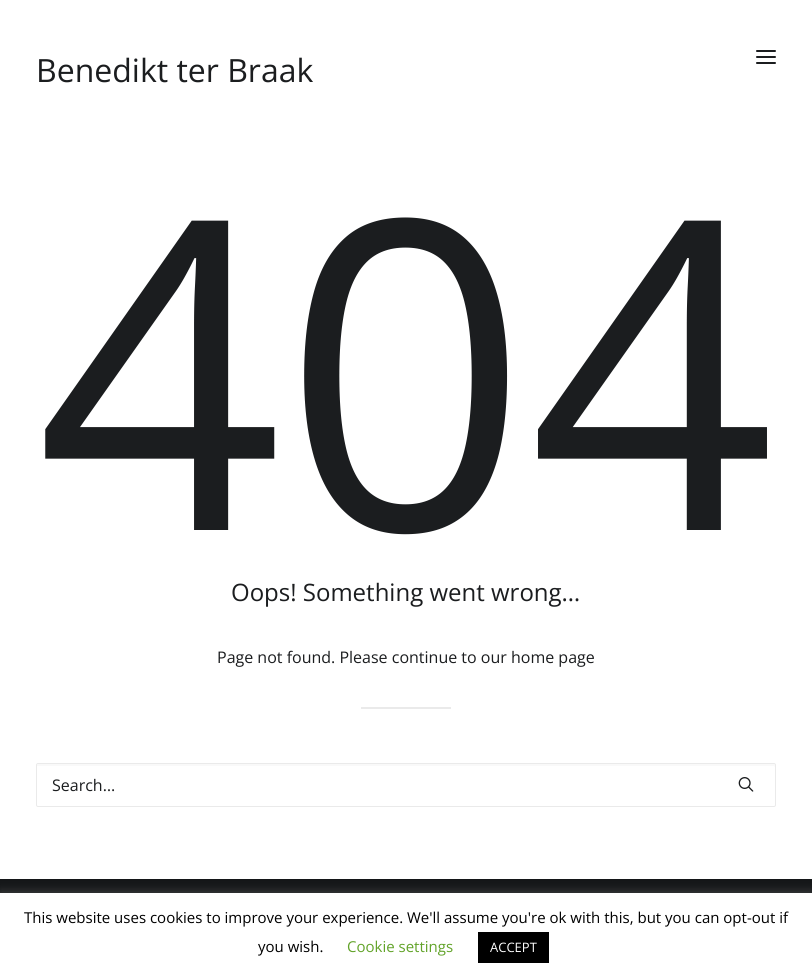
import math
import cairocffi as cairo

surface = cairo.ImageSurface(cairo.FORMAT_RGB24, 812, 980)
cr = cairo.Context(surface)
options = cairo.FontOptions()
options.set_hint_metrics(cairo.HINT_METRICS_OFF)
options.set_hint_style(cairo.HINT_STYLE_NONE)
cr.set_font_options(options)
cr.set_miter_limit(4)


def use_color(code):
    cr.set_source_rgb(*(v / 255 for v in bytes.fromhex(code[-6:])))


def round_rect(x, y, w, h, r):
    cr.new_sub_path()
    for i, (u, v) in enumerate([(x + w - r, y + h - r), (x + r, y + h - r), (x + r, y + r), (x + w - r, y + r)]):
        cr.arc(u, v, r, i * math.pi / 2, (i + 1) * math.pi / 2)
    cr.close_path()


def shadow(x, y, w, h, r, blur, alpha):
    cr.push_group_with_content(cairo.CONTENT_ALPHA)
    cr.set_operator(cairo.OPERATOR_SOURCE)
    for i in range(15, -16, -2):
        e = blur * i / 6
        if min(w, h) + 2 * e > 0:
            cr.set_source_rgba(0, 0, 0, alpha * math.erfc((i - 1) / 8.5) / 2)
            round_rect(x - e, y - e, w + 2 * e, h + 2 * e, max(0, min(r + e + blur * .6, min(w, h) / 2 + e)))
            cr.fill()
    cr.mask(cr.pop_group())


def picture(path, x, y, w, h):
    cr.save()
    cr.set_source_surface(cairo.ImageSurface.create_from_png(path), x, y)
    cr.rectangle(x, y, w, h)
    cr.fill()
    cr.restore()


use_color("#ffffff")
cr.paint()
cr.select_font_face("Open Sans")
cr.set_font_size(32)
use_color("#1b1d1f")
cr.move_to(36, 82)
cr.show_text("Benedikt ter Braak")
round_rect(756, 56, 20, 2, 1)
cr.fill()
round_rect(756, 50, 20, 2, 1)
cr.fill()
round_rect(756, 62, 20, 2, 1)
cr.fill()
cr.set_font_size(431)
cr.move_to(36, 530)
cr.show_text("404")
cr.set_font_size(24)
cr.move_to(231, 601)
cr.show_text("Oops! Something went wrong…")
cr.set_font_size(16)
cr.move_to(217, 663)
cr.show_text("Page not found. Please continue to our home page")
use_color("#eaeaea")
cr.rectangle(361, 707, 90, 2)
cr.fill()
use_color("#f9f9f9")
cr.new_path()
cr.move_to(38, 764)
cr.curve_to(37, 764, 37, 765, 37, 766)
cr.line_to(774, 766)
cr.line_to(775, 767)
cr.curve_to(775, 766, 775, 764, 774, 764)
cr.close_path()
cr.fill()
round_rect(36.5, 763.5, 739, 43, 1.5)
use_color("#eaeaea")
cr.set_line_width(1)
cr.stroke()
use_color("#1b1d1f")
cr.move_to(52, 791)
cr.show_text("Search…")
picture("img1.png", 738, 777, 16, 15)
use_color("#141618")
cr.rectangle(0, 879, 812, 14)
cr.fill()
use_color("#acabab")
shadow(0, 892, 812, 87, 0, 5, 0.3)
use_color("#ffffff")
cr.rectangle(0, 893, 812, 87)
cr.fill()
cr.set_font_size(15)
use_color("#000000")
cr.move_to(24, 923)
cr.show_text("This website uses cookies to improve your experience. We'll assume you're ok with this, but you can opt-out if")
cr.move_to(258, 952)
cr.show_text("you wish.")
use_color("#62a329")
cr.move_to(347, 952)
cr.show_text("Cookie settings")
use_color("#000000")
cr.rectangle(478, 932, 71, 31)
cr.fill()
cr.set_font_size(13)
use_color("#ffffff")
cr.move_to(490, 952)
cr.show_text("ACCEPT")
surface.write_to_png("result.png")
